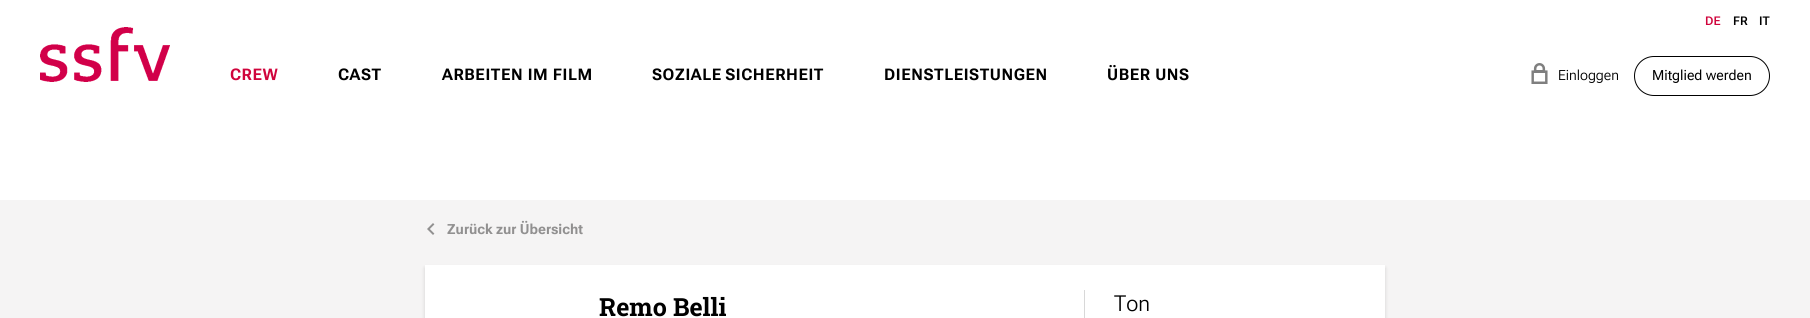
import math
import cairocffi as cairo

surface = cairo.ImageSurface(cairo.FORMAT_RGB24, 1810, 318)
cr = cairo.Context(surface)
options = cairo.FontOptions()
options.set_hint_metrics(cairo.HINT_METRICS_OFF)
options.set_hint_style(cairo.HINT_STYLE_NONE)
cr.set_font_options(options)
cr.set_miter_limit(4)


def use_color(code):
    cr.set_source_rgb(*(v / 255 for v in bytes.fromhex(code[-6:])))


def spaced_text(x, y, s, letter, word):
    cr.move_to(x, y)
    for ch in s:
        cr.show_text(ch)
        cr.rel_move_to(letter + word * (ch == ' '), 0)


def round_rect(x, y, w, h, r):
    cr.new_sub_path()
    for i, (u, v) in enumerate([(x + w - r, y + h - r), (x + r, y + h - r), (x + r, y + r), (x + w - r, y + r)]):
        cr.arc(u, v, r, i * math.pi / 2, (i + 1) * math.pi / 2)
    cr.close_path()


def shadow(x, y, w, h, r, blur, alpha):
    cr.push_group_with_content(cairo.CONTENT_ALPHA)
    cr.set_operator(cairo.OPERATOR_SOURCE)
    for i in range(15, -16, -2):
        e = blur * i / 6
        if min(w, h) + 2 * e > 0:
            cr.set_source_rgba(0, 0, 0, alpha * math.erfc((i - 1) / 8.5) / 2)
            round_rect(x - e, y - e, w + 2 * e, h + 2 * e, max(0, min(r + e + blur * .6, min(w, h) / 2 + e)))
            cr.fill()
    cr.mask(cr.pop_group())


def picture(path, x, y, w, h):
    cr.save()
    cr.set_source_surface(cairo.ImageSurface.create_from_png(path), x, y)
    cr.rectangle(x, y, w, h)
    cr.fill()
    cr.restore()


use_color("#f5f4f4")
cr.paint()
use_color("#ffffff")
cr.rectangle(0, 0, 1810, 200)
cr.fill()
picture("img1.png", 40, 27, 130, 55)
cr.select_font_face("Roboto Flex", cairo.FONT_SLANT_NORMAL, cairo.FONT_WEIGHT_BOLD)
cr.set_font_size(16)
use_color("#d0043c")
spaced_text(230, 80, "CREW", 0.6, 0)
use_color("#000000")
spaced_text(338, 80, "CAST", 0.6, 0)
spaced_text(442, 80, "ARBEITEN IM FILM", 0.6, 0)
spaced_text(652, 80, "SOZIALE SICHERHEIT", 0.6, -1)
spaced_text(884, 80, "DIENSTLEISTUNGEN", 0.6, 0)
spaced_text(1107, 80, "ÜBER UNS", 0.6, 0)
cr.select_font_face("Roboto Flex SemiBold")
cr.set_font_size(12)
use_color("#d0043c")
cr.move_to(1705, 25)
cr.show_text("DE")
use_color("#000000")
cr.move_to(1733, 25)
cr.show_text("FR")
cr.move_to(1759, 25)
cr.show_text("IT")
cr.select_font_face("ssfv")
cr.set_font_size(21)
use_color("#7f7f7f")
cr.move_to(1529, 84)
cr.show_text("e")
cr.select_font_face("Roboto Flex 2 Light")
cr.set_font_size(14)
use_color("#000000")
cr.move_to(1558, 80)
cr.show_text("Einloggen")
round_rect(1634.5, 56.5, 135, 39, 19.5)
cr.set_line_width(1)
cr.stroke()
cr.select_font_face("Roboto Flex")
cr.move_to(1652, 80)
cr.show_text("Mitglied werden")
cr.select_font_face("ssfv")
cr.set_font_size(12)
use_color("#919090")
cr.move_to(425, 235)
cr.show_text("j")
cr.select_font_face("Roboto Flex", cairo.FONT_SLANT_NORMAL, cairo.FONT_WEIGHT_BOLD)
cr.set_font_size(14)
cr.move_to(447, 234)
cr.show_text("Zurück zur Übersicht")
use_color("#000000")
shadow(425, 268, 960, 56, 0, 2, 0.15)
use_color("#ffffff")
cr.rectangle(425, 265, 960, 53)
cr.fill()
cr.select_font_face("Roboto Slab", cairo.FONT_SLANT_NORMAL, cairo.FONT_WEIGHT_BOLD)
cr.set_font_size(25)
use_color("#000000")
cr.move_to(599, 316)
cr.show_text("Remo Belli")
use_color("#d8d8d8")
cr.rectangle(1084, 290, 1, 28)
cr.fill()
cr.select_font_face("Roboto Flex Light")
cr.set_font_size(22)
use_color("#000000")
cr.move_to(1114, 311)
cr.show_text("Ton")
surface.write_to_png("result.png")
